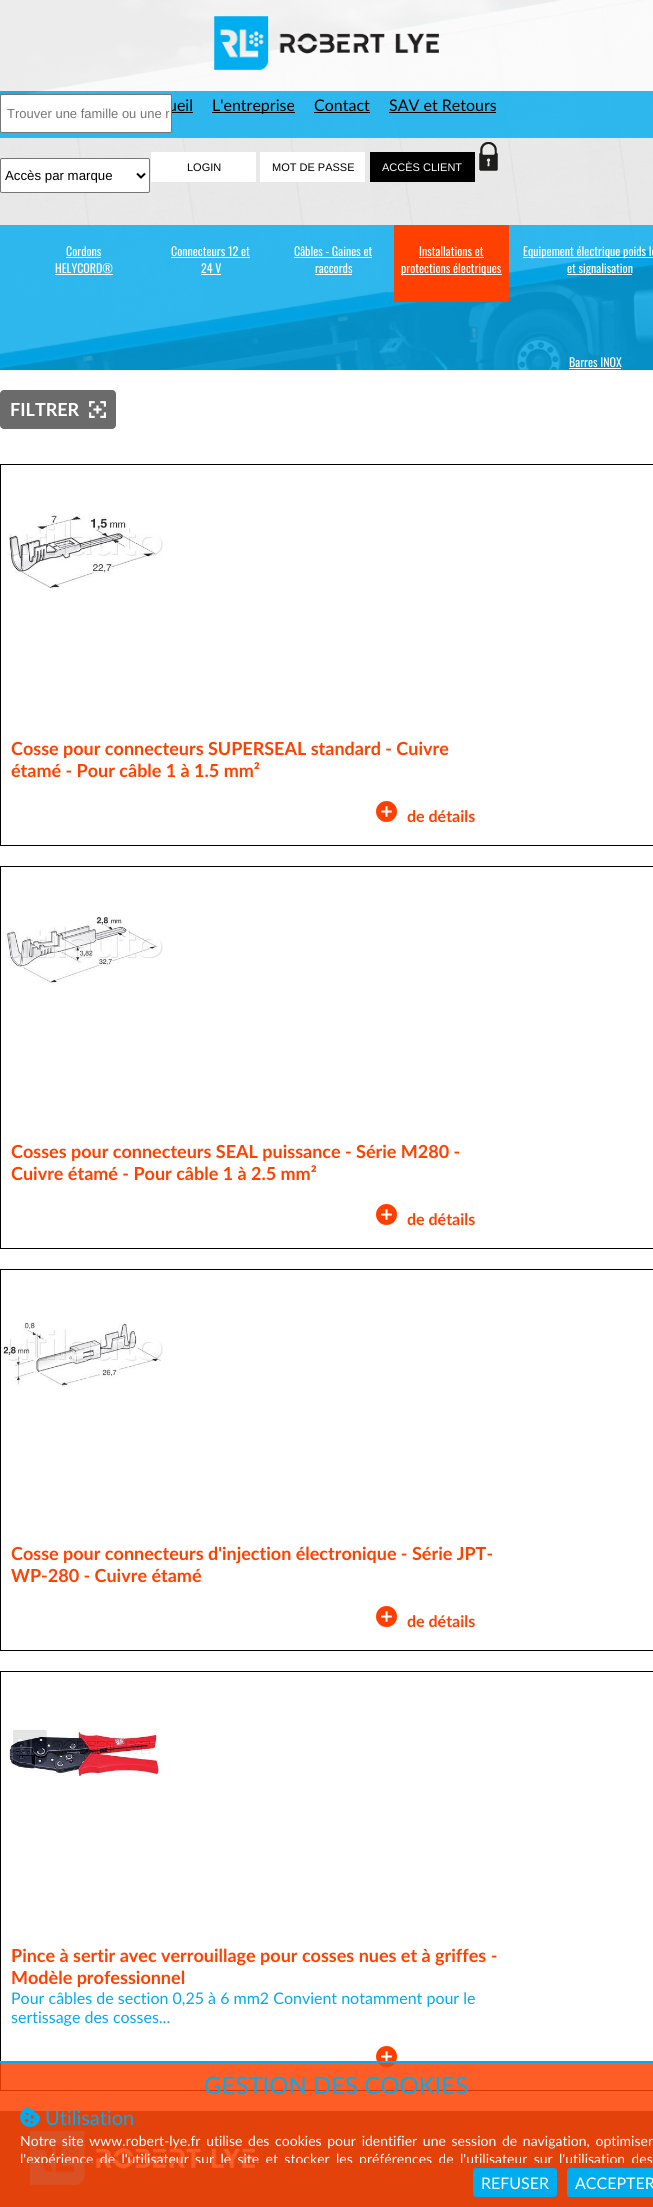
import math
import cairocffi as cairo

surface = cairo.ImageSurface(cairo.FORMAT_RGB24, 653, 2207)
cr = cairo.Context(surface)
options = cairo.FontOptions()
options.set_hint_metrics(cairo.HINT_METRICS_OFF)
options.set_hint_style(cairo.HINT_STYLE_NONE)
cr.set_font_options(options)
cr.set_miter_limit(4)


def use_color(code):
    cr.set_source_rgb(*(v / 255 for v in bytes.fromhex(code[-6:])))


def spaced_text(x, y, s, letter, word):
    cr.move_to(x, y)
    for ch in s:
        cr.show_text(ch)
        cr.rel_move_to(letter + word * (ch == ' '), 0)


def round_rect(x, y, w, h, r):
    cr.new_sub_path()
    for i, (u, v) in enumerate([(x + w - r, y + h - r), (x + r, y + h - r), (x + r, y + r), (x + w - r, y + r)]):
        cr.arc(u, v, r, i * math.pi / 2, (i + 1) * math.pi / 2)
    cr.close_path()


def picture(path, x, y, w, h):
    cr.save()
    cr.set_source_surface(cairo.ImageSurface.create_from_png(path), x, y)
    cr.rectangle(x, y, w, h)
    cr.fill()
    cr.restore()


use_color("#ffffff")
cr.paint()
picture("img1.png", 0, 0, 653, 370)
cr.set_source_rgba(0, 0.671, 0.933, 0.8)
cr.rectangle(0, 91, 653, 47)
cr.fill()
cr.select_font_face("Lato")
cr.set_font_size(16)
use_color("#000000")
cr.move_to(168, 111)
cr.show_text("ueil")
use_color("#ffffff")
round_rect(0.5, 94.5, 171, 38, 1.5)
cr.fill_preserve()
use_color("#767676")
cr.set_line_width(1)
cr.stroke()
cr.select_font_face("Liberation Sans")
cr.set_font_size(13)
use_color("#757575")
cr.move_to(7, 118)
cr.show_text("Trouver une famille ou une r")
use_color("#ffffff")
round_rect(0.5, 158.5, 149, 34, 1.5)
cr.fill_preserve()
use_color("#767676")
cr.stroke()
cr.new_path()
cr.move_to(137, 173.5)
cr.line_to(141, 177.5)
cr.line_to(145, 173.5)
use_color("#000000")
cr.set_line_width(2)
cr.stroke()
cr.set_font_size(13.25)
cr.move_to(5, 180)
cr.show_text("Accès par marque")
cr.set_source_rgba(1, 1, 1, 0.8)
cr.rectangle(0, 0, 653, 91)
cr.fill()
picture("img2.png", 214, 16, 225, 54)
use_color("#000000")
cr.rectangle(172, 112, 21, 1)
cr.fill()
cr.rectangle(212, 112, 83, 1)
cr.fill()
cr.select_font_face("Lato")
cr.set_font_size(16)
cr.move_to(212, 111)
cr.show_text("L'entreprise")
cr.move_to(314, 111)
cr.show_text("Contact")
cr.rectangle(314, 112, 56, 1)
cr.fill()
cr.move_to(389, 111)
cr.show_text("SAV et Retours")
cr.rectangle(389, 112, 107, 1)
cr.fill()
use_color("#ffffff")
cr.rectangle(151, 152, 105, 30)
cr.fill()
cr.select_font_face("Liberation Sans")
cr.set_font_size(11)
use_color("#000000")
cr.move_to(187, 171)
cr.show_text("LOGIN")
use_color("#ffffff")
cr.rectangle(260, 152, 105, 30)
cr.fill()
use_color("#000000")
cr.move_to(272, 171)
cr.show_text("MOT DE PASSE")
cr.rectangle(370, 152, 105, 30)
cr.fill()
use_color("#ffffff")
cr.move_to(382, 171)
cr.show_text("ACCÈS CLIENT")
picture("img3.png", 479, 142, 19, 29)
cr.set_source_rgba(0, 0.671, 0.933, 0.8)
cr.rectangle(0, 225, 653, 145)
cr.fill()
cr.select_font_face("Oswald")
cr.set_font_size(12)
use_color("#ffffff")
cr.move_to(66, 256)
cr.show_text("Cordons")
cr.rectangle(66, 257, 35, 1)
cr.fill()
cr.move_to(55, 273)
cr.show_text("HELYCORD®")
cr.rectangle(55, 274, 58, 1)
cr.fill()
cr.move_to(171, 256)
cr.show_text("Connecteurs 12 et")
cr.rectangle(171, 257, 79, 1)
cr.fill()
cr.move_to(201, 273)
cr.show_text("24 V")
cr.rectangle(201, 274, 20, 1)
cr.fill()
cr.move_to(294, 256)
cr.show_text("Câbles - Gaines et")
cr.rectangle(294, 257, 78, 1)
cr.fill()
cr.move_to(315, 273)
cr.show_text("raccords")
cr.rectangle(315, 274, 37, 1)
cr.fill()
use_color("#fe4101")
cr.rectangle(394, 225, 115, 77)
cr.fill()
use_color("#ffffff")
cr.move_to(419, 256)
cr.show_text("Installations et")
cr.rectangle(419, 257, 65, 1)
cr.fill()
cr.rectangle(401, 274, 101, 1)
cr.fill()
cr.move_to(401, 273)
cr.show_text("protections électriques")
cr.rectangle(523, 257, 130, 1)
cr.fill()
cr.move_to(523, 256)
cr.show_text("Equipement électrique poids lo")
cr.rectangle(567, 274, 65, 1)
cr.fill()
cr.move_to(567, 273)
cr.show_text("et signalisation")
cr.move_to(569, 367)
cr.show_text("Barres INOX")
cr.rectangle(569, 368, 52, 1)
cr.fill()
use_color("#6b6b6b")
round_rect(0, 390, 116, 39, 4)
cr.fill()
cr.select_font_face("Lato", cairo.FONT_SLANT_NORMAL, cairo.FONT_WEIGHT_BOLD)
cr.set_font_size(18)
use_color("#ffffff")
cr.move_to(10, 416)
cr.show_text("FILTRER")
picture("img4.png", 89, 401, 17, 17)
cr.rectangle(0.5, 464.5, 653, 381)
use_color("#000000")
cr.set_line_width(1)
cr.stroke()
picture("img5.png", 6, 513, 157, 78)
use_color("#ff4100")
cr.move_to(11, 755)
cr.show_text("Cosse pour connecteurs SUPERSEAL standard - Cuivre")
cr.move_to(11, 777)
cr.show_text("étamé - Pour câble 1 à 1.5 mm²")
picture("img6.png", 376, 801, 21, 21)
cr.set_font_size(16)
cr.move_to(407, 822)
cr.show_text("de détails")
cr.rectangle(0.5, 866.5, 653, 382)
use_color("#000000")
cr.stroke()
picture("img7.png", 5, 915, 158, 70)
cr.set_font_size(18)
use_color("#ff4100")
cr.move_to(11, 1158)
cr.show_text("Cosses pour connecteurs SEAL puissance - Série M280 -")
cr.move_to(11, 1180)
cr.show_text("Cuivre étamé - Pour câble 1 à 2.5 mm²")
picture("img6.png", 376, 1204, 21, 21)
cr.set_font_size(16)
cr.move_to(407, 1225)
cr.show_text("de détails")
cr.rectangle(0.5, 1269.5, 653, 381)
use_color("#000000")
cr.stroke()
picture("img8.png", 1, 1322, 162, 65)
cr.set_font_size(18)
use_color("#ff4100")
cr.move_to(11, 1560)
cr.show_text("Cosse pour connecteurs d'injection électronique - Série JPT-")
cr.move_to(11, 1582)
cr.show_text("WP-280 - Cuivre étamé")
picture("img6.png", 376, 1606, 21, 21)
cr.set_font_size(16)
cr.move_to(407, 1627)
cr.show_text("de détails")
cr.rectangle(0.5, 1671.5, 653, 419)
use_color("#000000")
cr.stroke()
picture("img9.png", 9, 1730, 155, 47)
cr.set_font_size(18)
use_color("#ff4100")
cr.move_to(11, 1962)
cr.show_text("Pince à sertir avec verrouillage pour cosses nues et à griffes -")
cr.move_to(11, 1984)
cr.show_text("Modèle professionnel")
cr.select_font_face("Lato")
cr.set_font_size(16)
use_color("#00abee")
cr.move_to(11, 2004)
cr.show_text("Pour câbles de section 0,25 à 6 mm2 Convient notamment pour le")
cr.move_to(11, 2023)
cr.show_text("sertissage des cosses...")
picture("img6.png", 376, 2046, 21, 21)
use_color("#4d4d4b")
cr.rectangle(0, 2111, 653, 96)
cr.fill()
picture("img11.png", 30, 2131, 225, 54)
cr.set_source_rgba(1, 0.255, 0, 0.85)
cr.rectangle(0, 2063, 653, 144)
cr.fill()
use_color("#00abee")
cr.rectangle(0, 2061, 653, 2)
cr.fill()
cr.set_font_size(24)
cr.move_to(204, 2094)
cr.show_text("GESTION DES COOKIES")
picture("img10.png", 20, 2107, 20, 20)
cr.set_font_size(20)
cr.move_to(45, 2125)
cr.show_text("Utilisation")
cr.set_font_size(14)
use_color("#ffffff")
spaced_text(20, 2146, "Notre site www.robert-lye.fr utilise des cookies pour identifier une session de navigation, optimiser", 0, 2.1)
cr.save()
cr.rectangle(10, 2073, 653, 90)
cr.clip()
spaced_text(20, 2164, "l'expérience de l'utilisateur sur le site et stocker les préférences de l'utilisateur sur l'utilisation des", 0, 2.75)
cr.restore()
use_color("#00abee")
round_rect(473, 2168, 84, 29, 3)
cr.fill()
cr.set_font_size(16)
use_color("#ffffff")
cr.move_to(481, 2189)
cr.show_text("REFUSER")
use_color("#00abee")
round_rect(567, 2168, 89, 29, 3)
cr.fill()
use_color("#ffffff")
cr.move_to(575, 2189)
cr.show_text("ACCEPTER")
surface.write_to_png("result.png")
